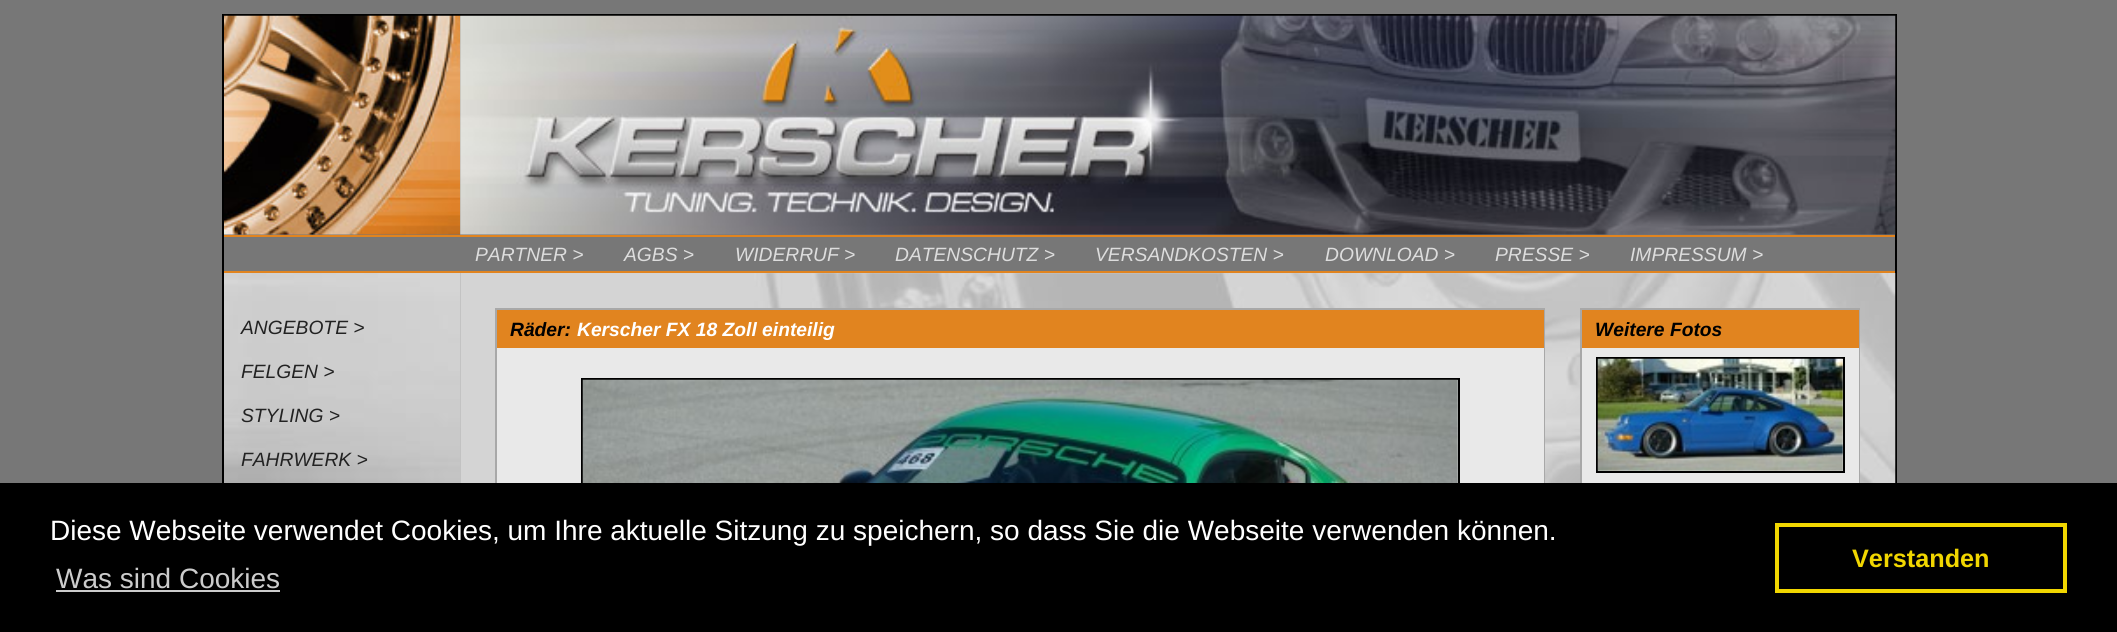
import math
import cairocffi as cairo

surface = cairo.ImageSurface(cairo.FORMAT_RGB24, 2117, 632)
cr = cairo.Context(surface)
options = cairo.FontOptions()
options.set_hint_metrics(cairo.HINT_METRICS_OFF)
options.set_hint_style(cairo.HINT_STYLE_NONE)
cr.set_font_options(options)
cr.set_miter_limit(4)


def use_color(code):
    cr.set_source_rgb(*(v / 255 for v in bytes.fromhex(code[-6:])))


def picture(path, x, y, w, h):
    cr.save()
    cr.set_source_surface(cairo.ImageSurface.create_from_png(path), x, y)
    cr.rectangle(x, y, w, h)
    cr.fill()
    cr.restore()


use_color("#777777")
cr.paint()
cr.rectangle(223, 15, 1673, 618)
use_color("#000000")
cr.stroke()
picture("img1.png", 224, 15, 237, 220)
picture("img2.png", 460, 15, 1436, 220)
use_color("#e1841f")
cr.rectangle(224, 235, 1671, 2)
cr.fill()
cr.rectangle(224, 271, 1671, 2)
cr.fill()
cr.select_font_face("Liberation Sans", cairo.FONT_SLANT_ITALIC)
cr.set_font_size(19.25)
use_color("#dddddd")
cr.move_to(475, 261)
cr.show_text("PARTNER >")
cr.move_to(624, 261)
cr.show_text("AGBS >")
cr.move_to(735, 261)
cr.show_text("WIDERRUF >")
cr.move_to(895, 261)
cr.show_text("DATENSCHUTZ >")
cr.move_to(1095, 261)
cr.show_text("VERSANDKOSTEN >")
cr.move_to(1325, 261)
cr.show_text("DOWNLOAD >")
cr.move_to(1495, 261)
cr.show_text("PRESSE >")
cr.move_to(1630, 261)
cr.show_text("IMPRESSUM >")
picture("img3.png", 224, 273, 237, 210)
use_color("#222222")
cr.move_to(241, 334)
cr.show_text("ANGEBOTE >")
cr.move_to(241, 378)
cr.show_text("FELGEN >")
cr.move_to(241, 422)
cr.show_text("STYLING >")
cr.move_to(241, 466)
cr.show_text("FAHRWERK >")
picture("img4.png", 460, 273, 1436, 210)
cr.rectangle(496, 309, 1048, 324)
use_color("#a8a8a8")
cr.stroke()
use_color("#e1841f")
cr.rectangle(497, 310, 1047, 38)
cr.fill()
cr.select_font_face("Liberation Sans", cairo.FONT_SLANT_ITALIC, cairo.FONT_WEIGHT_BOLD)
use_color("#000000")
cr.move_to(510, 336)
cr.show_text("Räder:")
use_color("#ffffff")
cr.move_to(577, 336)
cr.show_text("Kerscher FX 18 Zoll einteilig")
use_color("#e9e9e9")
cr.rectangle(497, 348, 1047, 135)
cr.fill()
cr.rectangle(582, 379, 877, 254)
use_color("#000000")
cr.stroke()
picture("img5.png", 582, 379, 876, 104)
cr.rectangle(1581, 309, 278, 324)
use_color("#a8a8a8")
cr.stroke()
use_color("#e1841f")
cr.rectangle(1582, 310, 277, 38)
cr.fill()
use_color("#000000")
cr.move_to(1595, 336)
cr.show_text("Weitere Fotos")
use_color("#e9e9e9")
cr.rectangle(1582, 348, 277, 135)
cr.fill()
cr.rectangle(1597, 358, 247, 114)
use_color("#000000")
cr.stroke()
picture("img6.png", 1597, 358, 246, 113)
cr.rectangle(0, 483, 2117, 149)
cr.fill()
cr.select_font_face("Liberation Sans")
cr.set_font_size(28)
use_color("#ffffff")
cr.move_to(50, 540)
cr.show_text("Diese Webseite verwendet Cookies, um Ihre aktuelle Sitzung zu speichern, so dass Sie die Webseite verwenden können.")
use_color("#cccccc")
cr.move_to(56, 588)
cr.show_text("Was sind Cookies")
cr.rectangle(56, 590, 224, 2)
cr.fill()
cr.rectangle(1777, 525, 288, 66)
use_color("#f1d600")
cr.set_line_width(4)
cr.stroke()
cr.select_font_face("Liberation Sans", cairo.FONT_SLANT_NORMAL, cairo.FONT_WEIGHT_BOLD)
cr.set_font_size(25.25)
cr.move_to(1852, 567)
cr.show_text("Verstanden")
surface.write_to_png("result.png")
